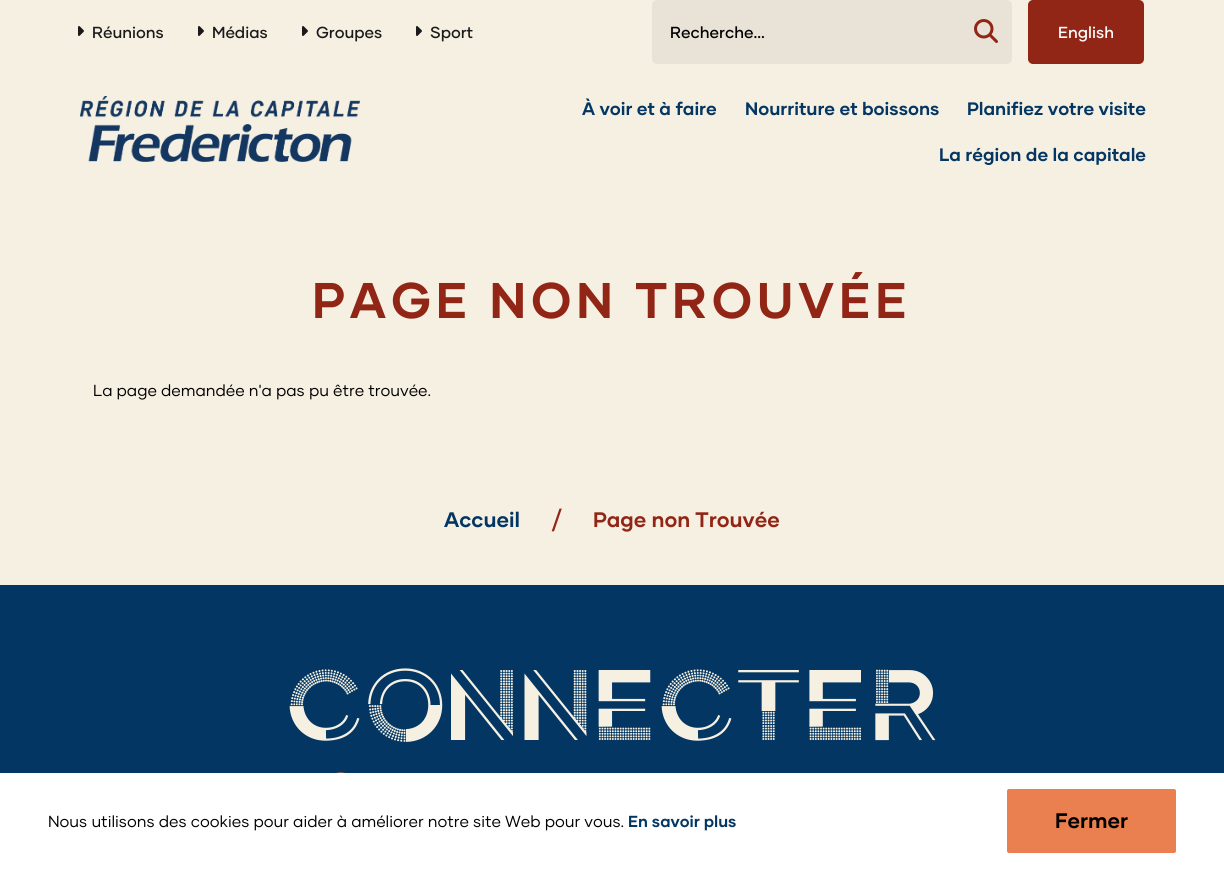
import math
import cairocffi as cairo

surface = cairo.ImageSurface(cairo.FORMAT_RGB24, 1224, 869)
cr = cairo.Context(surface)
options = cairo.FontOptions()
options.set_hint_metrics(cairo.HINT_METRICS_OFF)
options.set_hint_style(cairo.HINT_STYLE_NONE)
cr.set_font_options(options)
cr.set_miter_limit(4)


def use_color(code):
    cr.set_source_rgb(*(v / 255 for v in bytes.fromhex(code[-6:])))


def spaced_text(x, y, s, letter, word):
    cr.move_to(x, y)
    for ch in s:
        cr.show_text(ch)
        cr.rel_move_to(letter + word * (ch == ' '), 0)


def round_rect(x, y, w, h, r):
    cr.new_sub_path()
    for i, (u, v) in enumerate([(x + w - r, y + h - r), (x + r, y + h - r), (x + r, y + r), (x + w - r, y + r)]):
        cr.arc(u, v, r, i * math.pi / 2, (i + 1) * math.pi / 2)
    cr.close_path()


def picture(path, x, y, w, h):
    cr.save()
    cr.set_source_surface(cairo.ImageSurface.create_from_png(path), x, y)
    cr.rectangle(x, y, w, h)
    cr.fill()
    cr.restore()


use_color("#f6f0e2")
cr.paint()
picture("img1.png", 78, 26, 6, 10)
cr.select_font_face("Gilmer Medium")
cr.set_font_size(16)
use_color("#1a1a1a")
cr.move_to(92, 38)
cr.show_text("Réunions")
picture("img1.png", 198, 26, 6, 10)
cr.move_to(212, 38)
cr.show_text("Médias")
picture("img1.png", 302, 26, 6, 10)
cr.move_to(316, 38)
cr.show_text("Groupes")
picture("img1.png", 416, 26, 6, 10)
cr.move_to(430, 38)
cr.show_text("Sport")
use_color("#e9e2d6")
round_rect(652, 0, 360, 64, 5)
cr.fill()
use_color("#000000")
cr.move_to(670, 38)
cr.show_text("Recherche...")
picture("img2.png", 974, 19, 24, 24)
use_color("#922616")
round_rect(1028, 0, 116, 64, 5)
cr.fill()
use_color("#ffffff")
cr.move_to(1058, 38)
cr.show_text("English")
picture("img3.png", 80, 96, 280, 66)
cr.select_font_face("Gilmer", cairo.FONT_SLANT_NORMAL, cairo.FONT_WEIGHT_BOLD)
cr.set_font_size(18)
use_color("#033662")
cr.move_to(582, 115)
cr.show_text("À voir et à faire")
cr.move_to(745, 115)
cr.show_text("Nourriture et boissons")
cr.move_to(967, 115)
cr.show_text("Planifiez votre visite")
cr.move_to(939, 161)
cr.show_text("La région de la capitale")
cr.set_font_size(50)
use_color("#922616")
spaced_text(312, 318, "PAGE NON TROUVÉE", 5, 0)
cr.select_font_face("Gilmer")
cr.set_font_size(16)
use_color("#000000")
cr.move_to(93, 396)
cr.show_text("La page demandée n'a pas pu être trouvée.")
cr.select_font_face("Gilmer", cairo.FONT_SLANT_NORMAL, cairo.FONT_WEIGHT_BOLD)
cr.set_font_size(21)
use_color("#033662")
cr.move_to(444, 527)
cr.show_text("Accueil")
cr.select_font_face("Liberation Serif", cairo.FONT_SLANT_NORMAL, cairo.FONT_WEIGHT_BOLD)
cr.set_font_size(34)
use_color("#922616")
cr.move_to(552, 531)
cr.show_text("/")
cr.select_font_face("Gilmer", cairo.FONT_SLANT_NORMAL, cairo.FONT_WEIGHT_BOLD)
cr.set_font_size(21)
cr.move_to(593, 527)
cr.show_text("Page non Trouvée")
use_color("#033662")
cr.rectangle(0, 585, 1224, 188)
cr.fill()
cr.select_font_face("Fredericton")
cr.set_font_size(100)
use_color("#f6f0e2")
spaced_text(285, 740, "CONNECTER", 2, 0)
picture("img4.png", 336, 772, 9, 1)
use_color("#ffffff")
cr.rectangle(0, 773, 1224, 96)
cr.fill()
cr.select_font_face("Gilmer")
cr.set_font_size(16)
use_color("#000000")
cr.move_to(48, 827)
cr.show_text("Nous utilisons des cookies pour aider à améliorer notre site Web pour vous.")
cr.select_font_face("Gilmer", cairo.FONT_SLANT_NORMAL, cairo.FONT_WEIGHT_BOLD)
use_color("#033662")
cr.move_to(628, 827)
cr.show_text("En savoir plus")
use_color("#ea7f50")
round_rect(1007, 789, 169, 64, 2)
cr.fill()
cr.set_font_size(21)
use_color("#000000")
cr.move_to(1055, 828)
cr.show_text("Fermer")
surface.write_to_png("result.png")
